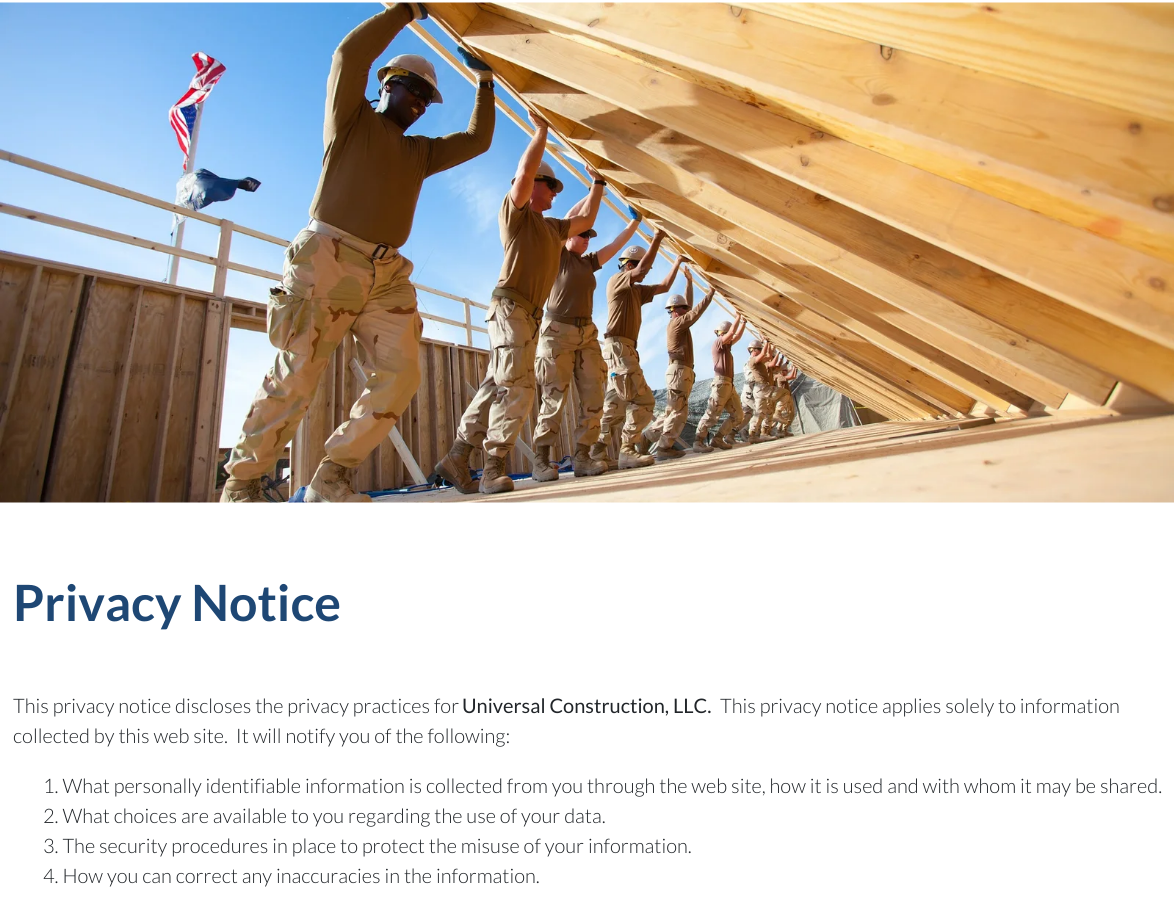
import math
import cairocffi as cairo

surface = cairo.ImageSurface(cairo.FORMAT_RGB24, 1174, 919)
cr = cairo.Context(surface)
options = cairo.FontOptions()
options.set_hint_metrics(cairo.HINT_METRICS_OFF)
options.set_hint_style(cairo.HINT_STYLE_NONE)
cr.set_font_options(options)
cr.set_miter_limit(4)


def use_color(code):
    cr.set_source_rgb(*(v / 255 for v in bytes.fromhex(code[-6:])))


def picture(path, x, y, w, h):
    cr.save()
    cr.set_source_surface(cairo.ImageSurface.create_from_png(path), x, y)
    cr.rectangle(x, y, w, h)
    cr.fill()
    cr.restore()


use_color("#ffffff")
cr.paint()
picture("img1.png", 0, 2, 1174, 501)
cr.select_font_face("Lato", cairo.FONT_SLANT_NORMAL, cairo.FONT_WEIGHT_BOLD)
cr.set_font_size(50)
use_color("#1e4774")
cr.move_to(13, 621)
cr.show_text("Privacy Notice")
cr.select_font_face("Lato Light")
cr.set_font_size(20)
use_color("#212529")
cr.move_to(13, 713)
cr.show_text("This privacy notice discloses the privacy practices for")
cr.select_font_face("Lato")
cr.move_to(462, 713)
cr.show_text("Universal Construction, LLC.")
cr.select_font_face("Lato Light")
cr.move_to(720, 713)
cr.show_text("This privacy notice applies solely to information")
cr.move_to(13, 743)
cr.show_text("collected by this web site.  It will notify you of the following:")
cr.move_to(43, 793)
cr.show_text("1. What personally identifiable information is collected from you through the web site, how it is used and with whom it may be shared.")
cr.move_to(43, 823)
cr.show_text("2. What choices are available to you regarding the use of your data.")
cr.move_to(43, 853)
cr.show_text("3. The security procedures in place to protect the misuse of your information.")
cr.move_to(43, 883)
cr.show_text("4. How you can correct any inaccuracies in the information.")
surface.write_to_png("result.png")
